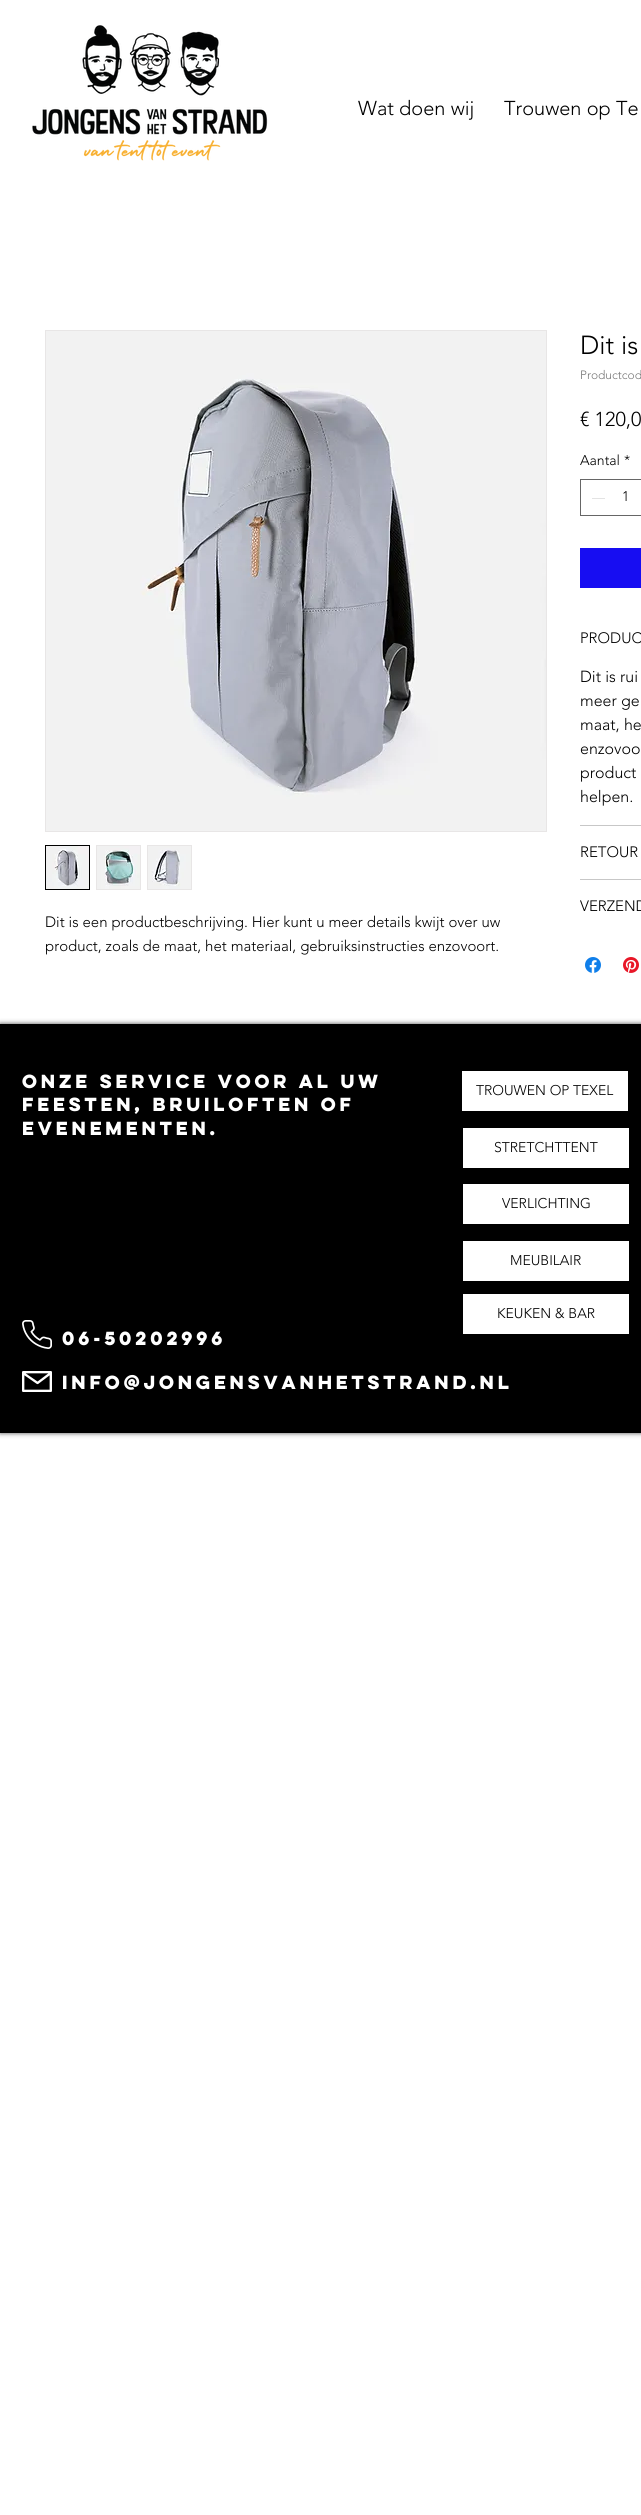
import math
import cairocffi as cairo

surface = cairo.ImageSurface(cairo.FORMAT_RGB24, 641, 2515)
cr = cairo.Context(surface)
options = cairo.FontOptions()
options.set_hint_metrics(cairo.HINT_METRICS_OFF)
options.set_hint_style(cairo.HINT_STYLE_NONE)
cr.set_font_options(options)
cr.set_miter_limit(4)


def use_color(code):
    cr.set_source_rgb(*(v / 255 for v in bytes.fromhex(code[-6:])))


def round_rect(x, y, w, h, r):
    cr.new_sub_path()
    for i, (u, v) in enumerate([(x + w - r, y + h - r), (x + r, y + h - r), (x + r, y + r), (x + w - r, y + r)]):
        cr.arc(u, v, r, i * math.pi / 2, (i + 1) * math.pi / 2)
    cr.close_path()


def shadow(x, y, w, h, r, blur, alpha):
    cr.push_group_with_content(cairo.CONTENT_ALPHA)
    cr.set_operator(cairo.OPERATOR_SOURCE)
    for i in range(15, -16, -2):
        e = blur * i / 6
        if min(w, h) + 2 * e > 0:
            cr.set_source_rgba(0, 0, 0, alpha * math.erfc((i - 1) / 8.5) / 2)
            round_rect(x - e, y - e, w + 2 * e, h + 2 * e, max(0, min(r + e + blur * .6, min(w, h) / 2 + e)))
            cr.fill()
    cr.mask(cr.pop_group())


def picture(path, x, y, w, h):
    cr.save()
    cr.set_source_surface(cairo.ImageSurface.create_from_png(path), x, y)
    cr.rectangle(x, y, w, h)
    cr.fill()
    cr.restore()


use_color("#ffffff")
cr.paint()
picture("img1.png", 32, 25, 236, 136)
cr.select_font_face("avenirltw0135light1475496 Light")
cr.set_font_size(20)
use_color("#000000")
cr.move_to(358, 115)
cr.show_text("Wat doen wij")
cr.move_to(504, 115)
cr.show_text("Trouwen op Te")
cr.set_font_size(26)
cr.move_to(580, 354)
cr.show_text("Dit is")
cr.set_font_size(12)
use_color("#757575")
cr.move_to(580, 379)
cr.show_text("Productcod")
cr.set_font_size(20)
use_color("#000000")
cr.move_to(580, 426)
cr.show_text("€ 120,0")
cr.set_font_size(14)
cr.move_to(580, 465)
cr.show_text("Aantal")
cr.move_to(624, 465)
cr.show_text("*")
cr.rectangle(580.5, 479.5, 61, 36)
use_color("#666666")
cr.set_line_width(1)
cr.stroke()
use_color("#e3e3e3")
cr.rectangle(592, 498, 13, 1)
cr.fill()
use_color("#000000")
cr.move_to(622, 501)
cr.show_text("1")
use_color("#170df2")
cr.rectangle(580, 548, 61, 40)
cr.fill()
use_color("#c7c7c7")
cr.rectangle(580, 825, 61, 1)
cr.fill()
cr.set_font_size(15)
use_color("#000000")
cr.move_to(580, 643)
cr.show_text("PRODUC")
cr.set_font_size(16)
cr.move_to(580, 682)
cr.show_text("Dit is rui")
cr.move_to(580, 706)
cr.show_text("meer ge")
cr.move_to(580, 730)
cr.show_text("maat, he")
cr.move_to(580, 754)
cr.show_text("enzovoo")
cr.move_to(580, 778)
cr.show_text("product")
cr.move_to(580, 802)
cr.show_text("helpen.")
use_color("#c7c7c7")
cr.rectangle(580, 879, 61, 1)
cr.fill()
cr.set_font_size(15)
use_color("#000000")
cr.move_to(580, 857)
cr.show_text("RETOUR")
cr.move_to(580, 911)
cr.show_text("VERZEND")
picture("img2.png", 585, 957, 16, 16)
picture("img3.png", 623, 957, 16, 16)
cr.rectangle(45.5, 330.5, 501, 501)
use_color("#e8e6e6")
cr.stroke()
picture("img4.png", 46, 331, 500, 500)
cr.rectangle(45.5, 845.5, 44, 44)
use_color("#000000")
cr.stroke()
picture("img5.png", 46, 846, 43, 43)
use_color("#e8e6e6")
cr.rectangle(96, 845, 45, 45)
cr.fill()
picture("img6.png", 97, 846, 43, 43)
cr.rectangle(147, 845, 45, 45)
cr.fill()
picture("img7.png", 148, 846, 43, 43)
use_color("#000000")
cr.move_to(45, 927)
cr.show_text("Dit is een productbeschrijving. Hier kunt u meer details kwijt over uw")
cr.move_to(45, 951)
cr.show_text("product, zoals de maat, het materiaal, gebruiksinstructies enzovoort.")
use_color("#000000")
shadow(0, 1024, 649, 409, 0, 2.5, 0.7)
use_color("#000000")
cr.rectangle(0, 1024, 641, 409)
cr.fill()
cr.select_font_face("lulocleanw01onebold", cairo.FONT_SLANT_NORMAL, cairo.FONT_WEIGHT_BOLD)
cr.set_font_size(17)
use_color("#ffffff")
cr.move_to(22, 1088)
cr.show_text("Onze service voor al uw")
cr.move_to(22, 1111)
cr.show_text("feesten, bruiloften of")
cr.move_to(22, 1135)
cr.show_text("evenementen.")
cr.rectangle(462, 1071, 166, 40)
cr.fill()
cr.select_font_face("avenirltw0135light1475496 Light")
cr.set_font_size(14)
use_color("#000000")
cr.move_to(476, 1095)
cr.show_text("TROUWEN OP TEXEL")
use_color("#ffffff")
cr.rectangle(463, 1128, 166, 40)
cr.fill()
use_color("#000000")
cr.move_to(494, 1152)
cr.show_text("STRETCHTTENT")
use_color("#ffffff")
cr.rectangle(463, 1184, 166, 40)
cr.fill()
use_color("#000000")
cr.move_to(502, 1208)
cr.show_text("VERLICHTING")
use_color("#ffffff")
cr.rectangle(463, 1241, 166, 40)
cr.fill()
use_color("#000000")
cr.move_to(510, 1265)
cr.show_text("MEUBILAIR")
use_color("#ffffff")
cr.rectangle(463, 1294, 166, 40)
cr.fill()
use_color("#000000")
cr.move_to(497, 1318)
cr.show_text("KEUKEN & BAR")
picture("img8.png", 22, 1320, 30, 29)
cr.select_font_face("lulocleanw01onebold", cairo.FONT_SLANT_NORMAL, cairo.FONT_WEIGHT_BOLD)
cr.set_font_size(17)
use_color("#ffffff")
cr.move_to(62, 1345)
cr.show_text("06-50202996")
picture("img9.png", 22, 1371, 30, 21)
cr.move_to(62, 1389)
cr.show_text("info@jongensvanhetstrand.nl")
surface.write_to_png("result.png")
